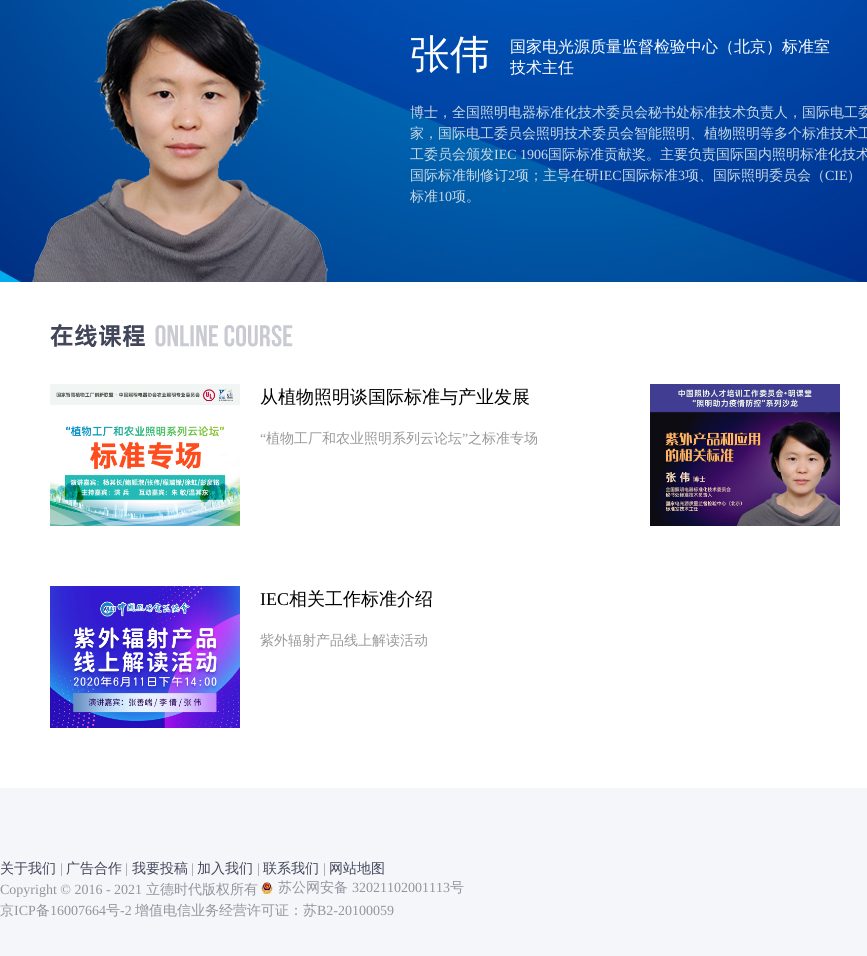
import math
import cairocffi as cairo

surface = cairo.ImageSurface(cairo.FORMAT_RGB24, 867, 956)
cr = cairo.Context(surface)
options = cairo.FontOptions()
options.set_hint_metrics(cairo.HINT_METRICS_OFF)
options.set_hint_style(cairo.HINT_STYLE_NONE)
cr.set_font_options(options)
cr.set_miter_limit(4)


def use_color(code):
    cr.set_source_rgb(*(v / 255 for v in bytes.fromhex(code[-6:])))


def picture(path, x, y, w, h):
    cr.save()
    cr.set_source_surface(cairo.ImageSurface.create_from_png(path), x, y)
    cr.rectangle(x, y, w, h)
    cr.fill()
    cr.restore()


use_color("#f5f6f9")
cr.paint()
picture("img1.png", 0, 0, 867, 282)
picture("img2.png", 32, 0, 296, 282)
cr.select_font_face("WenQuanYi Zen Hei Medium")
cr.set_font_size(40)
use_color("#ffffff")
cr.move_to(410, 68)
cr.show_text("张伟")
cr.set_font_size(16)
cr.move_to(510, 52)
cr.show_text("国家电光源质量监督检验中心（北京）标准室")
cr.move_to(510, 73)
cr.show_text("技术主任")
cr.set_font_size(14)
use_color("#cad9e4")
cr.move_to(410, 117)
cr.show_text("博士，全国照明电器标准化技术委员会秘书处标准技术负责人，国际电工委")
cr.move_to(410, 138)
cr.show_text("家，国际电工委员会照明技术委员会智能照明、植物照明等多个标准技术工")
cr.move_to(410, 159)
cr.show_text("工委员会颁发")
cr.select_font_face("Liberation Serif")
cr.move_to(494, 159)
cr.show_text("IEC 1906")
cr.select_font_face("WenQuanYi Zen Hei Medium")
cr.move_to(548, 159)
cr.show_text("国际标准贡献奖。主要负责国际国内照明标准化技术")
cr.move_to(410, 180)
cr.show_text("国际标准制修订")
cr.select_font_face("Liberation Serif")
cr.move_to(508, 180)
cr.show_text("2")
cr.select_font_face("WenQuanYi Zen Hei Medium")
cr.move_to(515, 180)
cr.show_text("项；主导在研")
cr.select_font_face("Liberation Serif")
cr.move_to(599, 180)
cr.show_text("IEC")
cr.select_font_face("WenQuanYi Zen Hei Medium")
cr.move_to(622, 180)
cr.show_text("国际标准")
cr.select_font_face("Liberation Serif")
cr.move_to(678, 180)
cr.show_text("3")
cr.select_font_face("WenQuanYi Zen Hei Medium")
cr.move_to(685, 180)
cr.show_text("项、国际照明委员会（")
cr.select_font_face("Liberation Serif")
cr.move_to(825, 180)
cr.show_text("CIE")
cr.select_font_face("WenQuanYi Zen Hei Medium")
cr.move_to(847, 180)
cr.show_text("）")
cr.move_to(410, 201)
cr.show_text("标准")
cr.select_font_face("Liberation Serif")
cr.move_to(438, 201)
cr.show_text("10")
cr.select_font_face("WenQuanYi Zen Hei Medium")
cr.move_to(452, 201)
cr.show_text("项。")
use_color("#ffffff")
cr.rectangle(0, 282, 867, 506)
cr.fill()
picture("img3.png", 50, 324, 243, 23)
picture("img4.png", 50, 384, 190, 142)
cr.set_font_size(18)
use_color("#000000")
cr.move_to(260, 403)
cr.show_text("从植物照明谈国际标准与产业发展")
cr.select_font_face("Liberation Serif")
cr.set_font_size(14)
use_color("#999999")
cr.move_to(260, 443)
cr.show_text("“")
cr.select_font_face("WenQuanYi Zen Hei Medium")
cr.move_to(266, 443)
cr.show_text("植物工厂和农业照明系列云论坛")
cr.select_font_face("Liberation Serif")
cr.move_to(462, 443)
cr.show_text("”")
cr.select_font_face("WenQuanYi Zen Hei Medium")
cr.move_to(468, 443)
cr.show_text("之标准专场")
picture("img5.png", 650, 384, 190, 142)
picture("img6.png", 50, 586, 190, 142)
cr.select_font_face("Liberation Serif")
cr.set_font_size(18)
use_color("#000000")
cr.move_to(260, 605)
cr.show_text("IEC")
cr.select_font_face("WenQuanYi Zen Hei Medium")
cr.move_to(289, 605)
cr.show_text("相关工作标准介绍")
cr.set_font_size(14)
use_color("#999999")
cr.move_to(260, 645)
cr.show_text("紫外辐射产品线上解读活动")
use_color("#41465a")
cr.move_to(0, 873)
cr.show_text("关于我们")
cr.select_font_face("Liberation Serif")
use_color("#92959f")
cr.move_to(60, 873)
cr.show_text("|")
cr.select_font_face("WenQuanYi Zen Hei Medium")
use_color("#41465a")
cr.move_to(66, 873)
cr.show_text("广告合作")
cr.select_font_face("Liberation Serif")
use_color("#92959f")
cr.move_to(125, 873)
cr.show_text("|")
cr.select_font_face("WenQuanYi Zen Hei Medium")
use_color("#41465a")
cr.move_to(132, 873)
cr.show_text("我要投稿")
cr.select_font_face("Liberation Serif")
use_color("#92959f")
cr.move_to(191, 873)
cr.show_text("|")
cr.select_font_face("WenQuanYi Zen Hei Medium")
use_color("#41465a")
cr.move_to(197, 873)
cr.show_text("加入我们")
cr.select_font_face("Liberation Serif")
use_color("#92959f")
cr.move_to(257, 873)
cr.show_text("|")
cr.select_font_face("WenQuanYi Zen Hei Medium")
use_color("#41465a")
cr.move_to(263, 873)
cr.show_text("联系我们")
cr.select_font_face("Liberation Serif")
use_color("#92959f")
cr.move_to(323, 873)
cr.show_text("|")
cr.select_font_face("WenQuanYi Zen Hei Medium")
use_color("#41465a")
cr.move_to(329, 873)
cr.show_text("网站地图")
cr.select_font_face("Liberation Serif")
use_color("#92959f")
cr.move_to(0, 894)
cr.show_text("Copyright © 2016 - 2021")
cr.select_font_face("WenQuanYi Zen Hei Medium")
cr.move_to(146, 894)
cr.show_text("立德时代版权所有")
picture("img7.png", 261, 882, 12, 12)
cr.move_to(278, 892)
cr.show_text("苏公网安备")
cr.select_font_face("Liberation Serif")
cr.move_to(352, 892)
cr.show_text("32021102001113")
cr.select_font_face("WenQuanYi Zen Hei Medium")
cr.move_to(450, 892)
cr.show_text("号")
cr.move_to(0, 915)
cr.show_text("京")
cr.select_font_face("Liberation Serif")
cr.move_to(14, 915)
cr.show_text("ICP")
cr.select_font_face("WenQuanYi Zen Hei Medium")
cr.move_to(36, 915)
cr.show_text("备")
cr.select_font_face("Liberation Serif")
cr.move_to(50, 915)
cr.show_text("16007664")
cr.select_font_face("WenQuanYi Zen Hei Medium")
cr.move_to(106, 915)
cr.show_text("号")
cr.select_font_face("Liberation Serif")
cr.move_to(120, 915)
cr.show_text("-2")
cr.select_font_face("WenQuanYi Zen Hei Medium")
cr.move_to(135, 915)
cr.show_text("增值电信业务经营许可证：苏")
cr.select_font_face("Liberation Serif")
cr.move_to(317, 915)
cr.show_text("B2-20100059")
surface.write_to_png("result.png")
